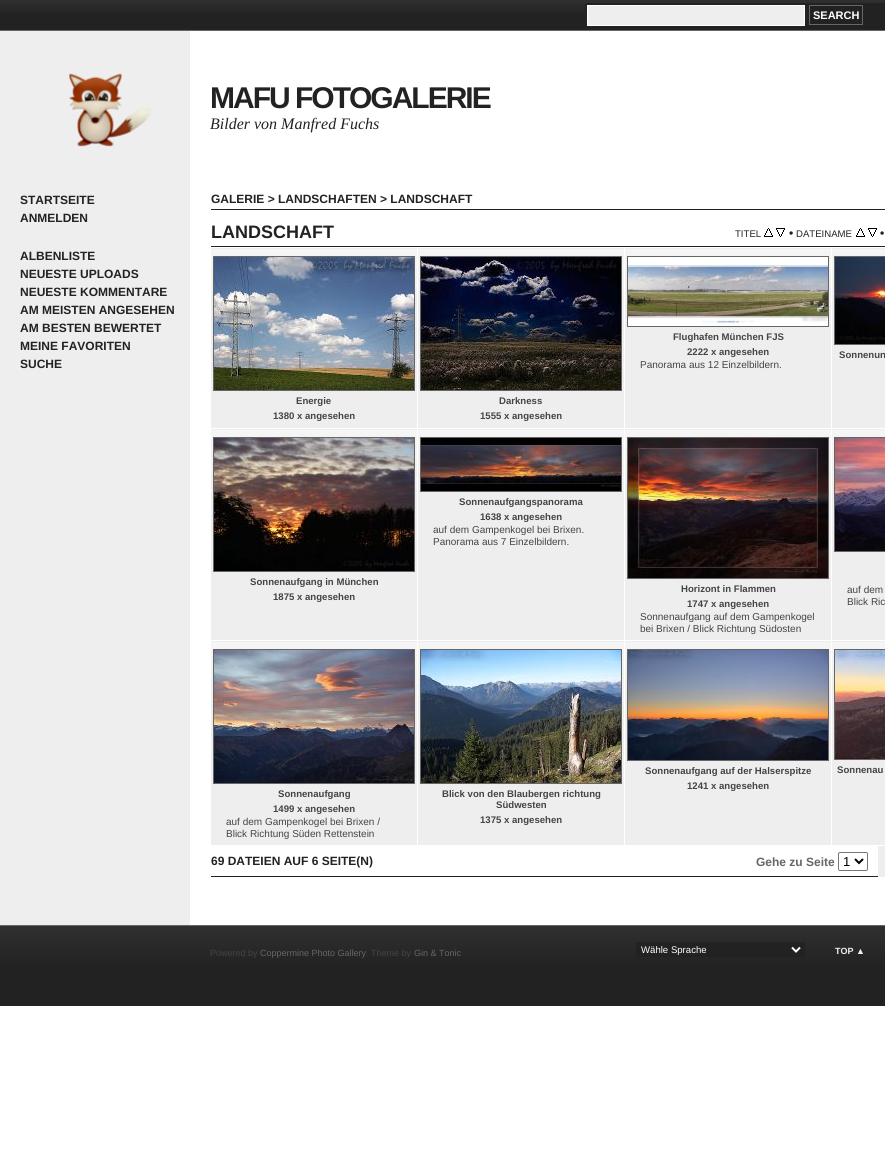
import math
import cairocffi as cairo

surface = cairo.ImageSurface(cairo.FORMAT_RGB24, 885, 1171)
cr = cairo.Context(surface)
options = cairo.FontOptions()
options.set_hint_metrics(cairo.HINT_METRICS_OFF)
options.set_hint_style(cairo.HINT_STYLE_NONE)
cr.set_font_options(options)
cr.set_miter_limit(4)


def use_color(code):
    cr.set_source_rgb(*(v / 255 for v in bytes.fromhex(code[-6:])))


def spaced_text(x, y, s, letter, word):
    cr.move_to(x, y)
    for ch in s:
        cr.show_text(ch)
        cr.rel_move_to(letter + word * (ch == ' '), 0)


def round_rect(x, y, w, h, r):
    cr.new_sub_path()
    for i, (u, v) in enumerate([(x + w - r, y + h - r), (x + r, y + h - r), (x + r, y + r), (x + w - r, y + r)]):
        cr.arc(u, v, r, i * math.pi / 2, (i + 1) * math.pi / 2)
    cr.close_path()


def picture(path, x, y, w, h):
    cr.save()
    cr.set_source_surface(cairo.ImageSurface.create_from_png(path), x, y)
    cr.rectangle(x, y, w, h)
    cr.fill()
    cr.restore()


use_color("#ffffff")
cr.paint()
gradient = cairo.LinearGradient(443, 0, 443, 30)
gradient.add_color_stop_rgba(0, 0.188, 0.188, 0.188, 1)
gradient.add_color_stop_rgba(0.52, 0.133, 0.133, 0.133, 1)
cr.set_source(gradient)
cr.rectangle(0, 0, 885, 30)
cr.fill()
use_color("#666666")
cr.rectangle(0, 30, 885, 1)
cr.fill()
use_color("#222222")
cr.rectangle(585, 3, 300, 10)
cr.fill()
use_color("#eeeeee")
cr.rectangle(587.5, 5.5, 217, 20)
cr.fill_preserve()
use_color("#ffffff")
cr.set_line_width(1)
cr.stroke()
cr.rectangle(809.5, 5.5, 53, 19)
use_color("#666666")
cr.stroke()
cr.select_font_face("Liberation Sans", cairo.FONT_SLANT_NORMAL, cairo.FONT_WEIGHT_BOLD)
cr.set_font_size(11)
use_color("#ffffff")
cr.move_to(813, 19)
cr.show_text("SEARCH")
use_color("#eeeeee")
cr.rectangle(0, 31, 190, 894)
cr.fill()
picture("img1.png", 69, 73, 83, 74)
cr.set_font_size(12)
use_color("#222222")
cr.move_to(20, 204)
cr.show_text("STARTSEITE")
cr.move_to(20, 222)
cr.show_text("ANMELDEN")
cr.move_to(20, 260)
cr.show_text("ALBENLISTE")
cr.move_to(20, 278)
cr.show_text("NEUESTE UPLOADS")
cr.move_to(20, 296)
cr.show_text("NEUESTE KOMMENTARE")
cr.move_to(20, 314)
cr.show_text("AM MEISTEN ANGESEHEN")
cr.move_to(20, 332)
cr.show_text("AM BESTEN BEWERTET")
cr.move_to(20, 350)
cr.show_text("MEINE FAVORITEN")
cr.move_to(20, 368)
cr.show_text("SUCHE")
cr.set_font_size(30)
spaced_text(210, 108, "MAFU FOTOGALERIE", -2, 0)
cr.select_font_face("Liberation Serif", cairo.FONT_SLANT_ITALIC)
cr.set_font_size(16)
cr.move_to(210, 129)
cr.show_text("Bilder von Manfred Fuchs")
cr.rectangle(211, 209, 674, 1)
cr.fill()
cr.select_font_face("Liberation Sans", cairo.FONT_SLANT_NORMAL, cairo.FONT_WEIGHT_BOLD)
cr.set_font_size(12)
cr.move_to(211, 203)
cr.show_text("GALERIE > LANDSCHAFTEN > LANDSCHAFT")
cr.rectangle(211, 246, 674, 1)
cr.fill()
cr.set_font_size(18)
cr.move_to(211, 238)
cr.show_text("LANDSCHAFT")
cr.select_font_face("Liberation Sans")
cr.set_font_size(9.6)
cr.move_to(735, 237)
cr.show_text("TITEL")
picture("img2.png", 764, 228, 9, 9)
picture("img3.png", 776, 228, 9, 9)
cr.select_font_face("Liberation Sans", cairo.FONT_SLANT_NORMAL, cairo.FONT_WEIGHT_BOLD)
cr.set_font_size(12)
cr.move_to(789, 237)
cr.show_text("•")
cr.select_font_face("Liberation Sans")
cr.set_font_size(9.6)
cr.move_to(796, 237)
cr.show_text("DATEINAME")
picture("img2.png", 856, 228, 9, 9)
picture("img3.png", 868, 228, 9, 9)
cr.select_font_face("Liberation Sans", cairo.FONT_SLANT_NORMAL, cairo.FONT_WEIGHT_BOLD)
cr.set_font_size(12)
cr.move_to(880, 237)
cr.show_text("•")
use_color("#eeeeee")
cr.rectangle(625, 248, 206, 1)
cr.fill()
gradient = cairo.LinearGradient(625, 428, 625, 249)
gradient.add_color_stop_rgba(0.68, 0.933, 0.933, 0.933, 1)
gradient.add_color_stop_rgba(1, 0.961, 0.961, 0.961, 1)
cr.set_source(gradient)
cr.rectangle(625, 249, 206, 179)
cr.fill()
cr.rectangle(627.5, 256.5, 201, 70)
use_color("#666666")
cr.stroke()
picture("img4.png", 628, 257, 200, 69)
cr.set_font_size(9.6)
use_color("#444444")
cr.move_to(673, 340)
cr.show_text("Flughafen München FJS")
cr.move_to(687, 355)
cr.show_text("2222 x angesehen")
cr.select_font_face("Liberation Sans")
cr.set_font_size(10)
cr.move_to(640, 368)
cr.show_text("Panorama aus 12 Einzelbildern.")
use_color("#eeeeee")
cr.rectangle(832, 248, 53, 1)
cr.fill()
gradient = cairo.LinearGradient(832, 428, 832, 249)
gradient.add_color_stop_rgba(0.68, 0.933, 0.933, 0.933, 1)
gradient.add_color_stop_rgba(1, 0.961, 0.961, 0.961, 1)
cr.set_source(gradient)
cr.rectangle(832, 249, 53, 179)
cr.fill()
cr.rectangle(834.5, 256.5, 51, 88)
use_color("#666666")
cr.stroke()
picture("img5.png", 835, 257, 50, 87)
cr.select_font_face("Liberation Sans", cairo.FONT_SLANT_NORMAL, cairo.FONT_WEIGHT_BOLD)
cr.set_font_size(9.6)
use_color("#444444")
cr.move_to(839, 358)
cr.show_text("Sonnenun")
use_color("#eeeeee")
cr.rectangle(211, 248, 206, 1)
cr.fill()
gradient = cairo.LinearGradient(211, 428, 211, 249)
gradient.add_color_stop_rgba(0.68, 0.933, 0.933, 0.933, 1)
gradient.add_color_stop_rgba(1, 0.961, 0.961, 0.961, 1)
cr.set_source(gradient)
cr.rectangle(211, 249, 206, 179)
cr.fill()
cr.rectangle(213.5, 256.5, 201, 134)
use_color("#666666")
cr.stroke()
picture("img6.png", 214, 257, 200, 133)
use_color("#444444")
cr.move_to(296, 404)
cr.show_text("Energie")
cr.move_to(273, 419)
cr.show_text("1380 x angesehen")
use_color("#eeeeee")
cr.rectangle(418, 248, 206, 1)
cr.fill()
gradient = cairo.LinearGradient(418, 428, 418, 249)
gradient.add_color_stop_rgba(0.68, 0.933, 0.933, 0.933, 1)
gradient.add_color_stop_rgba(1, 0.961, 0.961, 0.961, 1)
cr.set_source(gradient)
cr.rectangle(418, 249, 206, 179)
cr.fill()
cr.rectangle(420.5, 256.5, 201, 134)
use_color("#666666")
cr.stroke()
picture("img7.png", 421, 257, 200, 133)
use_color("#444444")
cr.move_to(499, 404)
cr.show_text("Darkness")
cr.move_to(480, 419)
cr.show_text("1555 x angesehen")
use_color("#eeeeee")
cr.rectangle(418, 429, 206, 1)
cr.fill()
gradient = cairo.LinearGradient(418, 640, 418, 430)
gradient.add_color_stop_rgba(0.68, 0.933, 0.933, 0.933, 1)
gradient.add_color_stop_rgba(1, 0.961, 0.961, 0.961, 1)
cr.set_source(gradient)
cr.rectangle(418, 430, 206, 210)
cr.fill()
cr.rectangle(420.5, 437.5, 201, 54)
use_color("#666666")
cr.stroke()
picture("img8.png", 421, 438, 200, 53)
use_color("#444444")
cr.move_to(459, 505)
cr.show_text("Sonnenaufgangspanorama")
cr.move_to(480, 520)
cr.show_text("1638 x angesehen")
cr.select_font_face("Liberation Sans")
cr.set_font_size(10)
cr.move_to(433, 533)
cr.show_text("auf dem Gampenkogel bei Brixen.")
cr.move_to(433, 545)
cr.show_text("Panorama aus 7 Einzelbildern.")
use_color("#eeeeee")
cr.rectangle(211, 429, 206, 1)
cr.fill()
gradient = cairo.LinearGradient(211, 640, 211, 430)
gradient.add_color_stop_rgba(0.68, 0.933, 0.933, 0.933, 1)
gradient.add_color_stop_rgba(1, 0.961, 0.961, 0.961, 1)
cr.set_source(gradient)
cr.rectangle(211, 430, 206, 210)
cr.fill()
cr.rectangle(213.5, 437.5, 201, 134)
use_color("#666666")
cr.stroke()
picture("img9.png", 214, 438, 200, 133)
cr.select_font_face("Liberation Sans", cairo.FONT_SLANT_NORMAL, cairo.FONT_WEIGHT_BOLD)
cr.set_font_size(9.6)
use_color("#444444")
cr.move_to(250, 585)
cr.show_text("Sonnenaufgang in München")
cr.move_to(273, 600)
cr.show_text("1875 x angesehen")
use_color("#eeeeee")
cr.rectangle(625, 429, 206, 1)
cr.fill()
gradient = cairo.LinearGradient(625, 640, 625, 430)
gradient.add_color_stop_rgba(0.68, 0.933, 0.933, 0.933, 1)
gradient.add_color_stop_rgba(1, 0.961, 0.961, 0.961, 1)
cr.set_source(gradient)
cr.rectangle(625, 430, 206, 210)
cr.fill()
cr.rectangle(627.5, 437.5, 201, 141)
use_color("#666666")
cr.stroke()
picture("img10.png", 628, 438, 200, 140)
use_color("#444444")
cr.move_to(681, 592)
cr.show_text("Horizont in Flammen")
cr.move_to(687, 607)
cr.show_text("1747 x angesehen")
cr.select_font_face("Liberation Sans")
cr.set_font_size(10)
cr.move_to(640, 620)
cr.show_text("Sonnenaufgang auf dem Gampenkogel")
cr.move_to(640, 632)
cr.show_text("bei Brixen / Blick Richtung Südosten")
use_color("#eeeeee")
cr.rectangle(832, 429, 53, 1)
cr.fill()
gradient = cairo.LinearGradient(832, 640, 832, 430)
gradient.add_color_stop_rgba(0.68, 0.933, 0.933, 0.933, 1)
gradient.add_color_stop_rgba(1, 0.961, 0.961, 0.961, 1)
cr.set_source(gradient)
cr.rectangle(832, 430, 53, 210)
cr.fill()
cr.rectangle(834.5, 437.5, 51, 114)
use_color("#666666")
cr.stroke()
picture("img11.png", 835, 438, 50, 113)
use_color("#444444")
cr.move_to(847, 593)
cr.show_text("auf dem")
cr.move_to(847, 605)
cr.show_text("Blick Ric")
use_color("#eeeeee")
cr.rectangle(625, 641, 206, 1)
cr.fill()
gradient = cairo.LinearGradient(625, 845, 625, 642)
gradient.add_color_stop_rgba(0.68, 0.933, 0.933, 0.933, 1)
gradient.add_color_stop_rgba(1, 0.961, 0.961, 0.961, 1)
cr.set_source(gradient)
cr.rectangle(625, 642, 206, 203)
cr.fill()
cr.rectangle(627.5, 649.5, 201, 111)
use_color("#666666")
cr.stroke()
picture("img12.png", 628, 650, 200, 110)
cr.select_font_face("Liberation Sans", cairo.FONT_SLANT_NORMAL, cairo.FONT_WEIGHT_BOLD)
cr.set_font_size(9.6)
use_color("#444444")
cr.move_to(645, 774)
cr.show_text("Sonnenaufgang auf der Halserspitze")
cr.move_to(687, 789)
cr.show_text("1241 x angesehen")
use_color("#eeeeee")
cr.rectangle(832, 641, 53, 1)
cr.fill()
gradient = cairo.LinearGradient(832, 845, 832, 642)
gradient.add_color_stop_rgba(0.68, 0.933, 0.933, 0.933, 1)
gradient.add_color_stop_rgba(1, 0.961, 0.961, 0.961, 1)
cr.set_source(gradient)
cr.rectangle(832, 642, 53, 203)
cr.fill()
cr.rectangle(834.5, 649.5, 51, 110)
use_color("#666666")
cr.stroke()
picture("img13.png", 835, 650, 50, 109)
use_color("#444444")
cr.move_to(837, 773)
cr.show_text("Sonnenau")
use_color("#eeeeee")
cr.rectangle(211, 641, 206, 1)
cr.fill()
gradient = cairo.LinearGradient(211, 845, 211, 642)
gradient.add_color_stop_rgba(0.68, 0.933, 0.933, 0.933, 1)
gradient.add_color_stop_rgba(1, 0.961, 0.961, 0.961, 1)
cr.set_source(gradient)
cr.rectangle(211, 642, 206, 203)
cr.fill()
cr.rectangle(213.5, 649.5, 201, 134)
use_color("#666666")
cr.stroke()
picture("img14.png", 214, 650, 200, 133)
use_color("#444444")
cr.move_to(278, 797)
cr.show_text("Sonnenaufgang")
cr.move_to(273, 812)
cr.show_text("1499 x angesehen")
cr.select_font_face("Liberation Sans")
cr.set_font_size(10)
cr.move_to(226, 825)
cr.show_text("auf dem Gampenkogel bei Brixen /")
cr.move_to(226, 837)
cr.show_text("Blick Richtung Süden Rettenstein")
use_color("#eeeeee")
cr.rectangle(418, 641, 206, 1)
cr.fill()
gradient = cairo.LinearGradient(418, 845, 418, 642)
gradient.add_color_stop_rgba(0.68, 0.933, 0.933, 0.933, 1)
gradient.add_color_stop_rgba(1, 0.961, 0.961, 0.961, 1)
cr.set_source(gradient)
cr.rectangle(418, 642, 206, 203)
cr.fill()
cr.rectangle(420.5, 649.5, 201, 134)
use_color("#666666")
cr.stroke()
picture("img15.png", 421, 650, 200, 133)
cr.select_font_face("Liberation Sans", cairo.FONT_SLANT_NORMAL, cairo.FONT_WEIGHT_BOLD)
cr.set_font_size(9.6)
use_color("#444444")
cr.move_to(442, 797)
cr.show_text("Blick von den Blaubergen richtung")
cr.move_to(496, 808)
cr.show_text("Südwesten")
cr.move_to(480, 823)
cr.show_text("1375 x angesehen")
use_color("#222222")
cr.rectangle(211, 876, 667, 1)
cr.fill()
cr.set_font_size(12)
cr.move_to(211, 865)
cr.show_text("69 DATEIEN AUF 6 SEITE(N)")
use_color("#666666")
cr.move_to(756, 866)
cr.show_text("Gehe zu Seite")
round_rect(838.5, 852.5, 29, 18, 1.5)
use_color("#767676")
cr.stroke()
cr.new_path()
cr.move_to(855, 859)
cr.line_to(859, 863)
cr.line_to(863, 859)
use_color("#000000")
cr.set_line_width(2)
cr.stroke()
cr.select_font_face("Liberation Sans")
cr.set_font_size(13)
cr.move_to(843, 866)
cr.show_text("1")
use_color("#eeeeee")
cr.rectangle(878, 846, 7, 31)
cr.fill()
gradient = cairo.LinearGradient(443, 926, 443, 1006)
gradient.add_color_stop_rgba(0, 0.188, 0.188, 0.188, 1)
gradient.add_color_stop_rgba(0.52, 0.133, 0.133, 0.133, 1)
cr.set_source(gradient)
cr.rectangle(0, 926, 885, 80)
cr.fill()
use_color("#666666")
cr.rectangle(0, 925, 885, 1)
cr.fill()
cr.set_font_size(9)
use_color("#444444")
cr.move_to(210, 956)
cr.show_text("Powered by")
use_color("#666666")
cr.move_to(260, 956)
cr.show_text("Coppermine Photo Gallery")
use_color("#444444")
cr.move_to(366, 956)
cr.show_text(". Theme by")
use_color("#666666")
cr.move_to(414, 956)
cr.show_text("Gin & Tonic")
use_color("#222222")
cr.rectangle(636, 942, 169, 15)
cr.fill()
cr.new_path()
cr.move_to(792, 947.5)
cr.line_to(796, 951.5)
cr.line_to(800, 947.5)
use_color("#ffffff")
cr.stroke()
cr.set_font_size(9.6)
cr.move_to(641, 953)
cr.show_text("Wähle Sprache")
cr.select_font_face("Liberation Sans", cairo.FONT_SLANT_NORMAL, cairo.FONT_WEIGHT_BOLD)
cr.set_font_size(9)
use_color("#eeeeee")
cr.move_to(835, 954)
cr.show_text("TOP ▲")
surface.write_to_png("result.png")
